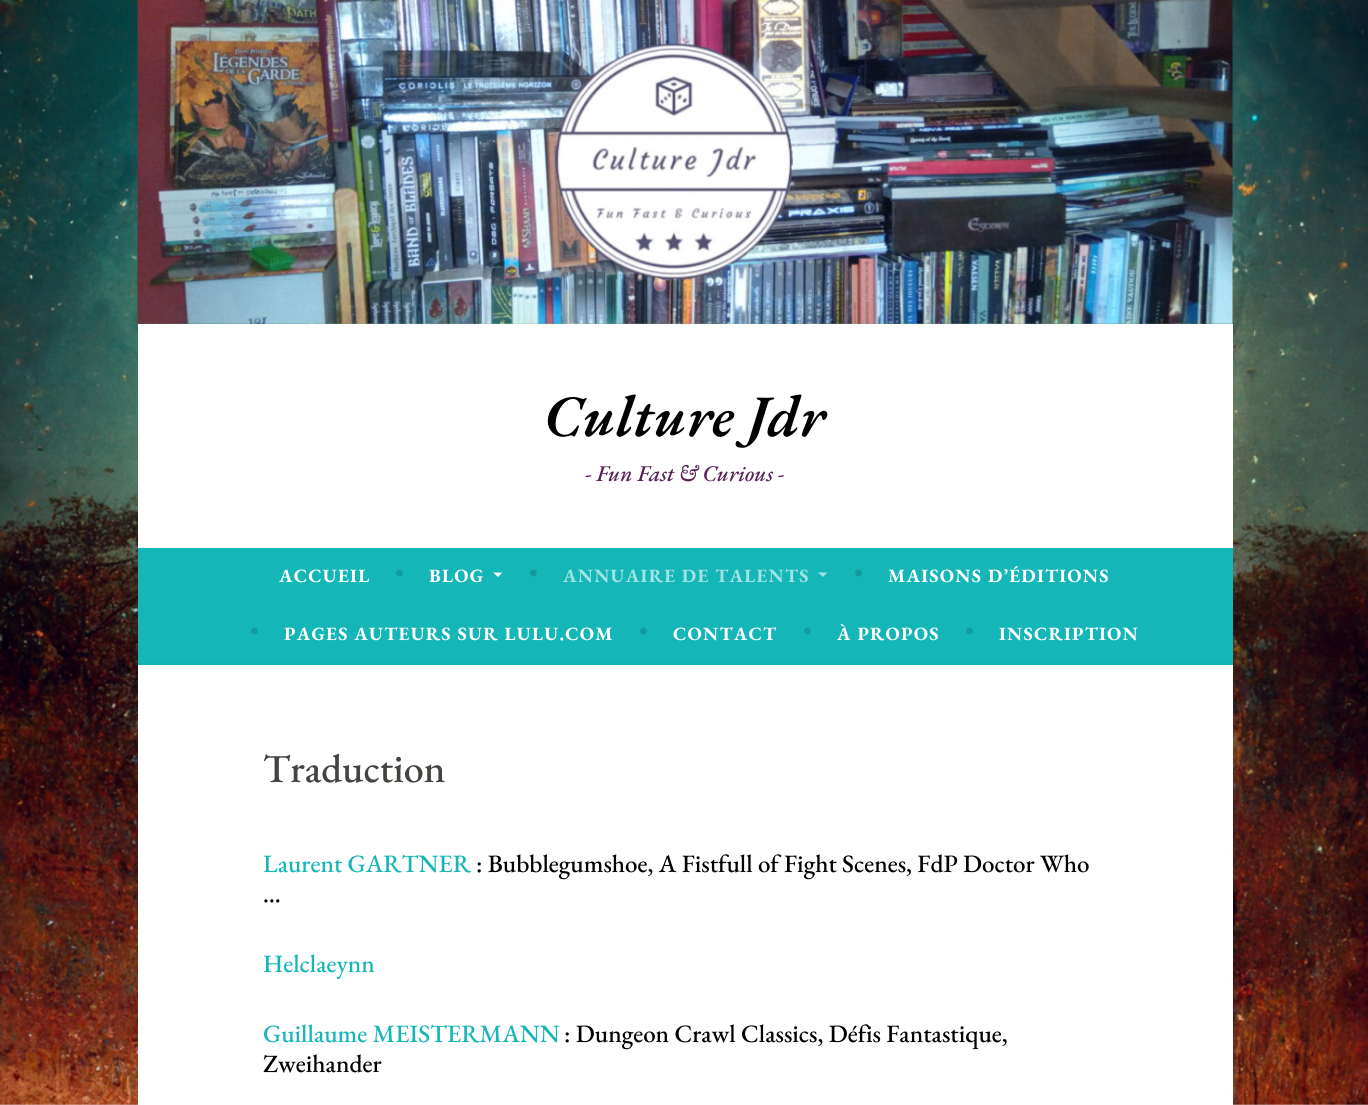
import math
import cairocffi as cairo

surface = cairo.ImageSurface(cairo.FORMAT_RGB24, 1368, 1105)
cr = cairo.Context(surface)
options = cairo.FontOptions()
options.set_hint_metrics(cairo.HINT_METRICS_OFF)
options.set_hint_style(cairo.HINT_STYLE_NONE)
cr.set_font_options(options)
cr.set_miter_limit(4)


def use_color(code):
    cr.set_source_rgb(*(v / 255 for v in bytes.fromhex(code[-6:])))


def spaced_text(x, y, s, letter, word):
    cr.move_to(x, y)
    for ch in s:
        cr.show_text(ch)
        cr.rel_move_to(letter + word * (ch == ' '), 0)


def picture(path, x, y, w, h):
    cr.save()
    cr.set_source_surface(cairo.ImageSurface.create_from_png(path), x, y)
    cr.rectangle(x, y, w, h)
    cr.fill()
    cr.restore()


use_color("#ffffff")
cr.paint()
picture("img1.png", 0, 0, 1368, 1105)
picture("img2.png", 137, 0, 1096, 324)
use_color("#ffffff")
cr.rectangle(138, 324, 1095, 224)
cr.fill()
cr.select_font_face("EB Garamond SemiBold", cairo.FONT_SLANT_ITALIC)
cr.set_font_size(58.75)
use_color("#000000")
cr.move_to(544, 436)
cr.show_text("Culture Jdr")
cr.select_font_face("EB Garamond Medium", cairo.FONT_SLANT_ITALIC)
cr.set_font_size(22.5)
use_color("#542056")
cr.move_to(585, 481)
cr.show_text("- Fun Fast & Curious -")
use_color("#15b6b8")
cr.rectangle(138, 548, 1095, 117)
cr.fill()
cr.set_source_rgba(0, 0, 0, 0.03)
cr.rectangle(138, 663, 1095, 2)
cr.fill()
cr.select_font_face("EB Garamond", cairo.FONT_SLANT_NORMAL, cairo.FONT_WEIGHT_BOLD)
cr.set_font_size(18.75)
use_color("#ffffff")
spaced_text(279, 582, "ACCUEIL", 1.25, 0)
cr.select_font_face("EB Garamond Medium")
cr.set_font_size(25)
use_color("#129b9c")
cr.move_to(395, 582)
cr.show_text("•")
cr.select_font_face("EB Garamond", cairo.FONT_SLANT_NORMAL, cairo.FONT_WEIGHT_BOLD)
cr.set_font_size(18.75)
use_color("#ffffff")
spaced_text(429, 582, "BLOG", 1.25, 0)
cr.new_path()
cr.move_to(493, 572.5)
cr.line_to(502.5, 572.5)
cr.line_to(498, 577)
cr.close_path()
cr.fill()
cr.select_font_face("EB Garamond Medium")
cr.set_font_size(25)
use_color("#129b9c")
cr.move_to(529, 582)
cr.show_text("•")
cr.select_font_face("EB Garamond", cairo.FONT_SLANT_NORMAL, cairo.FONT_WEIGHT_BOLD)
cr.set_font_size(18.75)
use_color("#a1e2e3")
spaced_text(563, 582, "ANNUAIRE DE TALENTS", 1.25, 0)
cr.new_path()
cr.move_to(818, 572.5)
cr.line_to(827.5, 572.5)
cr.line_to(823, 577)
cr.close_path()
cr.fill()
cr.select_font_face("EB Garamond Medium")
cr.set_font_size(25)
use_color("#129b9c")
cr.move_to(854, 582)
cr.show_text("•")
cr.select_font_face("EB Garamond", cairo.FONT_SLANT_NORMAL, cairo.FONT_WEIGHT_BOLD)
cr.set_font_size(18.75)
use_color("#ffffff")
spaced_text(888, 582, "MAISONS D’ÉDITIONS", 1.25, 0)
cr.select_font_face("EB Garamond Medium")
cr.set_font_size(25)
use_color("#129b9c")
cr.move_to(250, 640)
cr.show_text("•")
cr.select_font_face("EB Garamond", cairo.FONT_SLANT_NORMAL, cairo.FONT_WEIGHT_BOLD)
cr.set_font_size(18.75)
use_color("#ffffff")
spaced_text(284, 640, "PAGES AUTEURS SUR LULU.COM", 1.25, 0)
cr.select_font_face("EB Garamond Medium")
cr.set_font_size(25)
use_color("#129b9c")
cr.move_to(639, 640)
cr.show_text("•")
cr.select_font_face("EB Garamond", cairo.FONT_SLANT_NORMAL, cairo.FONT_WEIGHT_BOLD)
cr.set_font_size(18.75)
use_color("#ffffff")
spaced_text(673, 640, "CONTACT", 1.25, 0)
cr.select_font_face("EB Garamond Medium")
cr.set_font_size(25)
use_color("#129b9c")
cr.move_to(803, 640)
cr.show_text("•")
cr.select_font_face("EB Garamond", cairo.FONT_SLANT_NORMAL, cairo.FONT_WEIGHT_BOLD)
cr.set_font_size(18.75)
use_color("#ffffff")
spaced_text(837, 640, "À PROPOS", 1.25, 0)
cr.select_font_face("EB Garamond Medium")
cr.set_font_size(25)
use_color("#129b9c")
cr.move_to(965, 640)
cr.show_text("•")
cr.select_font_face("EB Garamond", cairo.FONT_SLANT_NORMAL, cairo.FONT_WEIGHT_BOLD)
cr.set_font_size(18.75)
use_color("#ffffff")
spaced_text(999, 640, "INSCRIPTION", 1.25, 0)
cr.rectangle(138, 665, 1095, 440)
cr.fill()
cr.select_font_face("EB Garamond Medium")
cr.set_font_size(40)
use_color("#444340")
cr.move_to(263, 782)
cr.show_text("Traduction")
cr.set_font_size(25)
use_color("#15b6b8")
cr.move_to(263, 872)
cr.show_text("Laurent GARTNER")
use_color("#000000")
cr.move_to(476, 872)
cr.show_text(": Bubblegumshoe, A Fistfull of Fight Scenes, FdP Doctor Who")
cr.move_to(263, 902)
cr.show_text("…")
use_color("#15b6b8")
cr.move_to(263, 972)
cr.show_text("Helclaeynn")
cr.move_to(263, 1042)
cr.show_text("Guillaume MEISTERMANN")
use_color("#000000")
cr.move_to(564, 1042)
cr.show_text(": Dungeon Crawl Classics, Défis Fantastique,")
cr.move_to(263, 1072)
cr.show_text("Zweihander")
surface.write_to_png("result.png")
